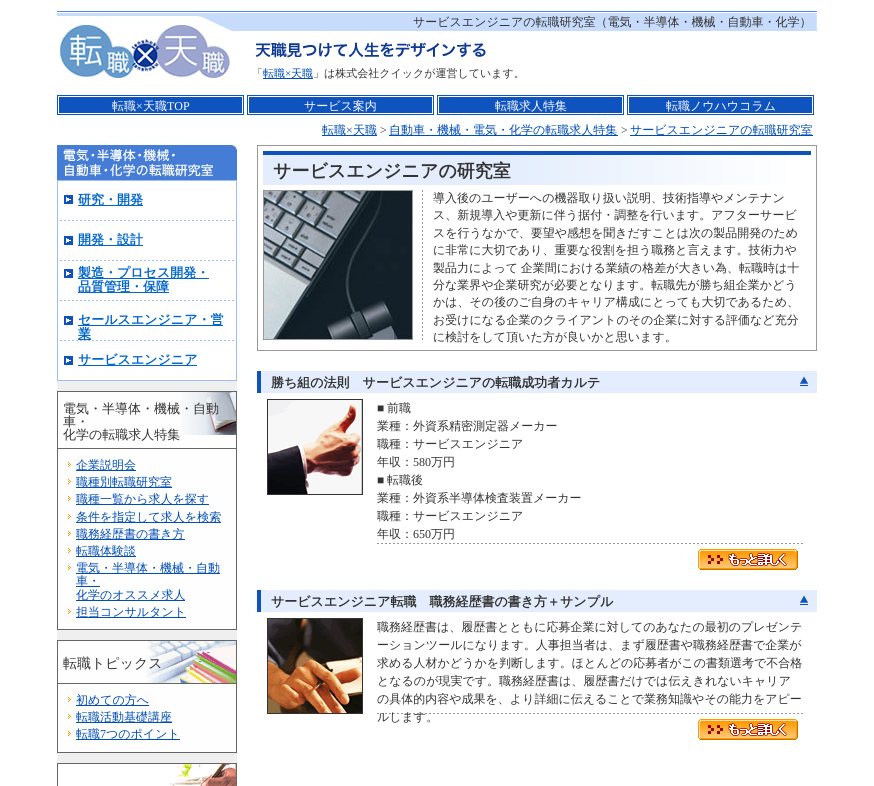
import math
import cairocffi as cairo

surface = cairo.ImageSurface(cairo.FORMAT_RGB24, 874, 786)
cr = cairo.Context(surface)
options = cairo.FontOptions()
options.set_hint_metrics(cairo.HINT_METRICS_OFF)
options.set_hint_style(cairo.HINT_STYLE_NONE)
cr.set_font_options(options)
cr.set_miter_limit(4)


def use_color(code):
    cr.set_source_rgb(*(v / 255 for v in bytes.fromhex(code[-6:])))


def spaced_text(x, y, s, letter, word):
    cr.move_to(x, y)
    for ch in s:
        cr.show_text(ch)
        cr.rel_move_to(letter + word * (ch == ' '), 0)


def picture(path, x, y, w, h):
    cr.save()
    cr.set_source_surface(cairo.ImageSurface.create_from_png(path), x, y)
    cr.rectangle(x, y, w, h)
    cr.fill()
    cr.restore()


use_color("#ffffff")
cr.paint()
picture("img1.png", 57, 11, 760, 20)
cr.select_font_face("WenQuanYi Zen Hei Medium")
cr.set_font_size(12)
use_color("#333333")
cr.move_to(413, 26)
cr.show_text("サービスエンジニアの転職研究室（電気・半導体・機械・自動車・化学）")
picture("img2.png", 60, 25, 170, 53)
picture("img3.png", 255, 42, 231, 16)
cr.set_font_size(11)
cr.move_to(252, 77)
cr.show_text("「")
use_color("#004db6")
cr.rectangle(263, 78, 50, 1)
cr.fill()
cr.move_to(263, 77)
cr.show_text("転職")
cr.select_font_face("Liberation Serif")
cr.move_to(285, 77)
cr.show_text("×")
cr.select_font_face("WenQuanYi Zen Hei Medium")
cr.move_to(291, 77)
cr.show_text("天職")
use_color("#333333")
cr.move_to(313, 77)
cr.show_text("」は株式会社クイックが運営しています。")
picture("img4.png", 57, 95, 187, 20)
cr.set_font_size(12)
use_color("#ffffff")
cr.move_to(112, 110)
cr.show_text("転職")
cr.select_font_face("Liberation Serif")
cr.move_to(136, 110)
cr.show_text("×")
cr.select_font_face("WenQuanYi Zen Hei Medium")
cr.move_to(143, 110)
cr.show_text("天職")
cr.select_font_face("Liberation Serif")
cr.move_to(167, 110)
cr.show_text("TOP")
picture("img4.png", 247, 95, 187, 20)
cr.select_font_face("WenQuanYi Zen Hei Medium")
cr.move_to(304, 110)
cr.show_text("サービス案内")
picture("img4.png", 437, 95, 187, 20)
cr.move_to(495, 110)
cr.show_text("転職求人特集")
picture("img4.png", 627, 95, 187, 20)
cr.move_to(666, 110)
cr.show_text("転職ノウハウコラム")
use_color("#004db6")
cr.rectangle(322, 135, 55, 1)
cr.fill()
cr.move_to(322, 134)
cr.show_text("転職")
cr.select_font_face("Liberation Serif")
cr.move_to(346, 134)
cr.show_text("×")
cr.select_font_face("WenQuanYi Zen Hei Medium")
cr.move_to(353, 134)
cr.show_text("天職")
cr.select_font_face("Liberation Serif")
use_color("#333333")
cr.move_to(380, 134)
cr.show_text(">")
use_color("#004db6")
cr.rectangle(389, 135, 229, 1)
cr.fill()
cr.select_font_face("WenQuanYi Zen Hei Medium")
cr.move_to(389, 134)
cr.show_text("自動車・機械・電気・化学の転職求人特集")
cr.select_font_face("Liberation Serif")
use_color("#333333")
cr.move_to(621, 134)
cr.show_text(">")
use_color("#004db6")
cr.rectangle(630, 135, 183, 1)
cr.fill()
cr.select_font_face("WenQuanYi Zen Hei Medium")
cr.move_to(630, 134)
cr.show_text("サービスエンジニアの転職研究室")
use_color("#efefef")
cr.rectangle(57, 381, 180, 382)
cr.fill()
picture("img5.png", 57, 145, 180, 35)
cr.rectangle(57.5, 180.5, 179, 200)
use_color("#9bbef9")
cr.set_line_width(1)
cr.stroke()
picture("img6.png", 58, 181, 178, 39)
use_color("#0066cc")
cr.rectangle(78, 205, 65, 1)
cr.fill()
cr.select_font_face("WenQuanYi Zen Hei", cairo.FONT_SLANT_NORMAL, cairo.FONT_WEIGHT_BOLD)
cr.set_font_size(13)
cr.move_to(78, 204)
cr.show_text("研究・開発")
picture("img7.png", 58, 220, 178, 40)
cr.rectangle(78, 245, 65, 1)
cr.fill()
cr.move_to(78, 244)
cr.show_text("開発・設計")
picture("img8.png", 58, 260, 178, 40)
cr.rectangle(78, 278, 131, 1)
cr.fill()
cr.move_to(78, 277)
cr.show_text("製造・プロセス開発・")
cr.rectangle(78, 292, 91, 1)
cr.fill()
cr.move_to(78, 291)
cr.show_text("品質管理・保障")
picture("img7.png", 58, 300, 178, 40)
cr.rectangle(78, 325, 145, 1)
cr.fill()
cr.move_to(78, 324)
cr.show_text("セールスエンジニア・営")
cr.rectangle(78, 339, 13, 1)
cr.fill()
cr.move_to(78, 338)
cr.show_text("業")
picture("img7.png", 58, 340, 178, 40)
cr.rectangle(78, 365, 119, 1)
cr.fill()
cr.move_to(78, 364)
cr.show_text("サービスエンジニア")
use_color("#fefefe")
cr.rectangle(57.5, 391.5, 179, 238)
cr.fill_preserve()
use_color("#666666")
cr.stroke()
picture("img9.png", 181, 392, 55, 43)
cr.rectangle(58, 448, 178, 1)
cr.fill()
cr.select_font_face("WenQuanYi Zen Hei Medium")
use_color("#333333")
cr.move_to(63, 413)
cr.show_text("電気・半導体・機械・自動")
cr.move_to(63, 426)
cr.show_text("車・")
cr.move_to(63, 439)
cr.show_text("化学の転職求人特集")
picture("img10.png", 68, 462, 3, 5)
use_color("#004db6")
cr.rectangle(76, 470, 60, 1)
cr.fill()
cr.set_font_size(12)
cr.move_to(76, 469)
cr.show_text("企業説明会")
picture("img10.png", 68, 479, 3, 5)
cr.rectangle(76, 487, 96, 1)
cr.fill()
cr.move_to(76, 486)
cr.show_text("職種別転職研究室")
picture("img10.png", 68, 496, 3, 5)
cr.rectangle(76, 504, 133, 1)
cr.fill()
cr.move_to(76, 503)
cr.show_text("職種一覧から求人を探す")
picture("img10.png", 68, 514, 3, 5)
cr.rectangle(76, 522, 145, 1)
cr.fill()
cr.move_to(76, 521)
cr.show_text("条件を指定して求人を検索")
picture("img10.png", 68, 531, 3, 5)
cr.rectangle(76, 539, 109, 1)
cr.fill()
cr.move_to(76, 538)
cr.show_text("職務経歴書の書き方")
picture("img10.png", 68, 548, 3, 5)
cr.rectangle(76, 556, 60, 1)
cr.fill()
cr.move_to(76, 555)
cr.show_text("転職体験談")
picture("img10.png", 68, 565, 3, 5)
cr.rectangle(76, 573, 144, 1)
cr.fill()
cr.move_to(76, 572)
cr.show_text("電気・半導体・機械・自動")
cr.rectangle(76, 586, 24, 1)
cr.fill()
cr.move_to(76, 585)
cr.show_text("車・")
cr.rectangle(76, 600, 109, 1)
cr.fill()
cr.move_to(76, 599)
cr.show_text("化学のオススメ求人")
picture("img10.png", 68, 609, 3, 5)
cr.rectangle(76, 617, 110, 1)
cr.fill()
cr.move_to(76, 616)
cr.show_text("担当コンサルタント")
use_color("#fefefe")
cr.rectangle(57.5, 640.5, 179, 112)
cr.fill_preserve()
use_color("#666666")
cr.stroke()
picture("img11.png", 146, 641, 90, 42)
cr.rectangle(58, 683, 178, 1)
cr.fill()
cr.set_font_size(14)
use_color("#333333")
cr.move_to(63, 668)
cr.show_text("転職トピックス")
picture("img10.png", 68, 697, 3, 5)
use_color("#004db6")
cr.rectangle(76, 705, 73, 1)
cr.fill()
cr.set_font_size(12)
cr.move_to(76, 704)
cr.show_text("初めての方へ")
picture("img10.png", 68, 714, 3, 5)
cr.rectangle(76, 722, 96, 1)
cr.fill()
cr.move_to(76, 721)
cr.show_text("転職活動基礎講座")
picture("img10.png", 68, 731, 3, 5)
cr.rectangle(76, 739, 104, 1)
cr.fill()
cr.move_to(76, 738)
cr.show_text("転職")
cr.select_font_face("Liberation Serif")
cr.move_to(100, 738)
cr.show_text("7")
cr.select_font_face("WenQuanYi Zen Hei Medium")
cr.move_to(106, 738)
cr.show_text("つのポイント")
cr.rectangle(57.5, 763.5, 179, 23)
use_color("#666666")
cr.stroke()
picture("img12.png", 169, 764, 67, 22)
cr.rectangle(257.5, 145.5, 559, 205)
use_color("#999999")
cr.stroke()
picture("img13.png", 263, 151, 548, 34)
cr.select_font_face("WenQuanYi Zen Hei", cairo.FONT_SLANT_NORMAL, cairo.FONT_WEIGHT_BOLD)
cr.set_font_size(18)
use_color("#333333")
cr.move_to(273, 177)
cr.show_text("サービスエンジニアの研究室")
picture("img14.png", 263, 190, 160, 150)
cr.select_font_face("WenQuanYi Zen Hei Medium")
cr.set_font_size(12)
cr.move_to(433, 202)
cr.show_text("導入後のユーザーへの機器取り扱い説明、技術指導やメンテナン")
cr.move_to(433, 219)
cr.show_text("ス、新規導入や更新に伴う据付・調整を行います。アフターサービ")
cr.move_to(433, 237)
cr.show_text("スを行うなかで、要望や感想を聞きだすことは次の製品開発のため")
cr.move_to(433, 254)
cr.show_text("に非常に大切であり、重要な役割を担う職務と言えます。技術力や")
spaced_text(433, 272, "製品力によって 企業間における業績の格差が大きい為、転職時は十", 0, -1)
cr.move_to(433, 289)
cr.show_text("分な業界や企業研究が必要となります。転職先が勝ち組企業かどう")
cr.move_to(433, 306)
cr.show_text("かは、その後のご自身のキャリア構成にとっても大切であるため、")
cr.move_to(433, 324)
cr.show_text("お受けになる企業のクライアントのその企業に対する評価など充分")
cr.move_to(433, 341)
cr.show_text("に検討をして頂いた方が良いかと思います。")
picture("img15.png", 257, 371, 560, 22)
cr.select_font_face("WenQuanYi Zen Hei", cairo.FONT_SLANT_NORMAL, cairo.FONT_WEIGHT_BOLD)
cr.set_font_size(13)
cr.move_to(271, 387)
cr.show_text("勝ち組の法則　サービスエンジニアの転職成功者カルテ")
picture("img16.png", 267, 399, 96, 96)
cr.select_font_face("Liberation Serif")
cr.set_font_size(12)
cr.move_to(377, 412)
cr.show_text("■")
cr.select_font_face("WenQuanYi Zen Hei Medium")
cr.move_to(387, 412)
cr.show_text("前職")
cr.move_to(377, 430)
cr.show_text("業種：外資系精密測定器メーカー")
cr.move_to(377, 448)
cr.show_text("職種：サービスエンジニア")
cr.move_to(377, 466)
cr.show_text("年収：")
cr.select_font_face("Liberation Serif")
cr.move_to(413, 466)
cr.show_text("580")
cr.select_font_face("WenQuanYi Zen Hei Medium")
cr.move_to(431, 466)
cr.show_text("万円")
cr.select_font_face("Liberation Serif")
cr.move_to(377, 484)
cr.show_text("■")
cr.select_font_face("WenQuanYi Zen Hei Medium")
cr.move_to(387, 484)
cr.show_text("転職後")
cr.move_to(377, 502)
cr.show_text("業種：外資系半導体検査装置メーカー")
cr.move_to(377, 520)
cr.show_text("職種：サービスエンジニア")
cr.move_to(377, 538)
cr.show_text("年収：")
cr.select_font_face("Liberation Serif")
cr.move_to(413, 538)
cr.show_text("650")
cr.select_font_face("WenQuanYi Zen Hei Medium")
cr.move_to(431, 538)
cr.show_text("万円")
picture("img17.png", 377, 543, 426, 1)
picture("img18.png", 698, 549, 100, 21)
picture("img15.png", 257, 590, 560, 22)
cr.select_font_face("WenQuanYi Zen Hei", cairo.FONT_SLANT_NORMAL, cairo.FONT_WEIGHT_BOLD)
cr.set_font_size(13)
cr.move_to(271, 606)
cr.show_text("サービスエンジニア転職　職務経歴書の書き方＋サンプル")
picture("img19.png", 267, 618, 96, 96)
cr.select_font_face("WenQuanYi Zen Hei Medium")
cr.set_font_size(12)
cr.move_to(377, 631)
cr.show_text("職務経歴書は、履歴書とともに応募企業に対してのあなたの最初のプレゼンテ")
cr.move_to(377, 649)
cr.show_text("ーションツールになります。人事担当者は、まず履歴書や職務経歴書で企業が")
cr.move_to(377, 667)
cr.show_text("求める人材かどうかを判断します。ほとんどの応募者がこの書類選考で不合格")
cr.move_to(377, 685)
cr.show_text("となるのが現実です。職務経歴書は、履歴書だけでは伝えきれないキャリア")
cr.move_to(377, 703)
cr.show_text("の具体的内容や成果を、より詳細に伝えることで業務知識やその能力をアピー")
picture("img17.png", 377, 713, 426, 1)
cr.move_to(377, 721)
cr.show_text("ルします。")
picture("img18.png", 698, 719, 100, 21)
surface.write_to_png("result.png")
